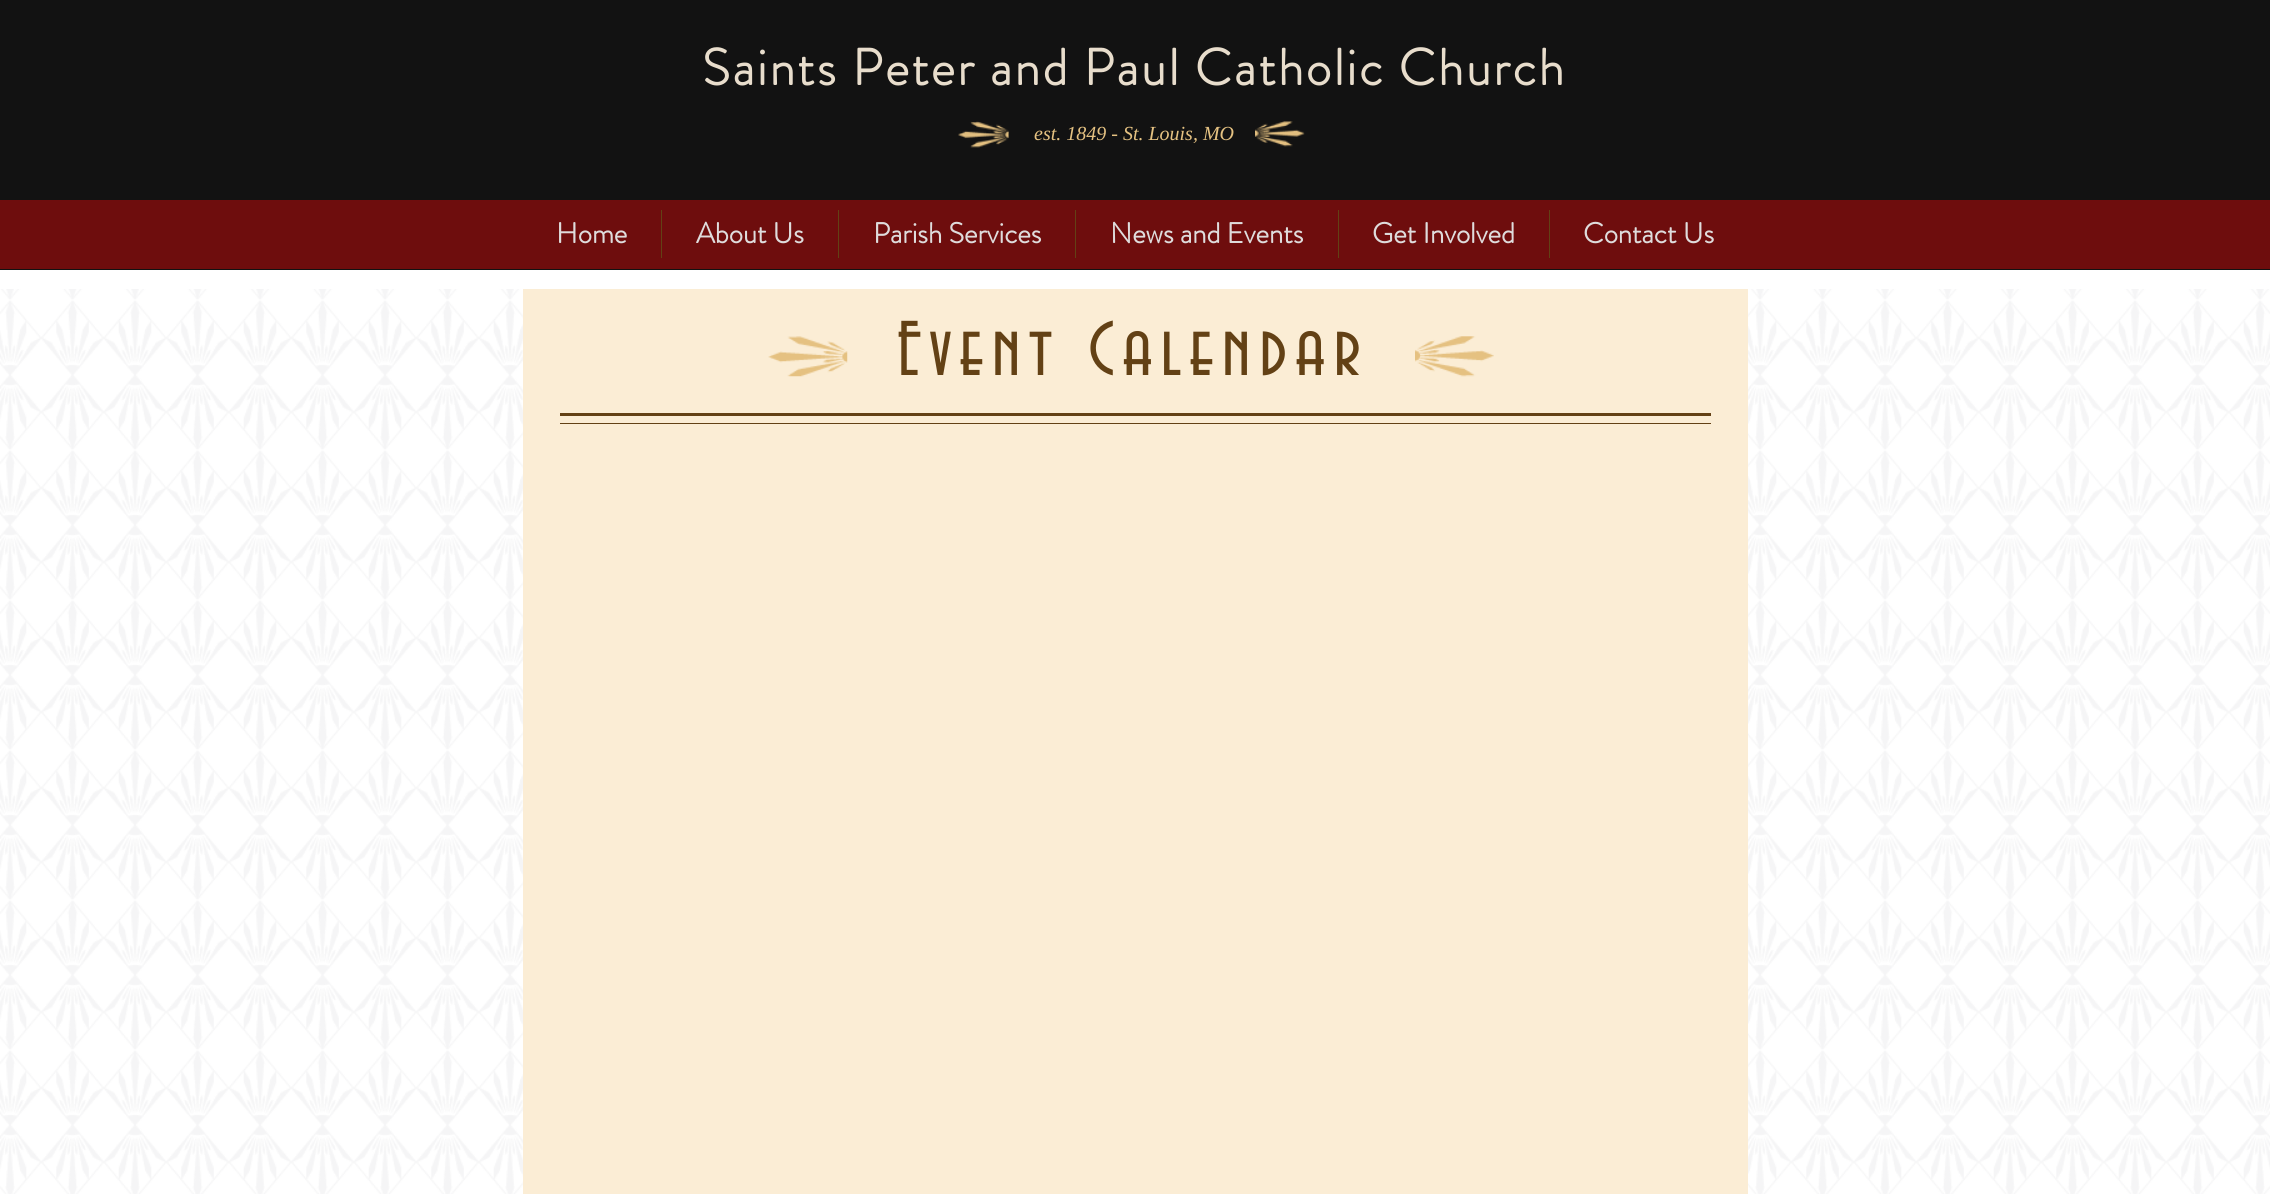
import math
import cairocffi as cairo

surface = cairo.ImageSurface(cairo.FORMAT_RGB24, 2270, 1194)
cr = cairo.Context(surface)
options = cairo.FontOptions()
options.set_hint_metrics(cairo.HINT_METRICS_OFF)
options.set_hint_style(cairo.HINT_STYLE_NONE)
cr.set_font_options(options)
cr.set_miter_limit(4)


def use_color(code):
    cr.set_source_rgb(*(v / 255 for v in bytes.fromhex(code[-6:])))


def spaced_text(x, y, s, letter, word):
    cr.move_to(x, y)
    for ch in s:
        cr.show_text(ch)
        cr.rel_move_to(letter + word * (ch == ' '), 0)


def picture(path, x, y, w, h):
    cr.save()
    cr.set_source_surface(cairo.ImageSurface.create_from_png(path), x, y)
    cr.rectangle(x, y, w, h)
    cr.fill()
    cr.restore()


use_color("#ffffff")
cr.paint()
use_color("#121212")
cr.rectangle(0, 0, 2270, 270)
cr.fill()
cr.select_font_face("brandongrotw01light", cairo.FONT_SLANT_NORMAL, cairo.FONT_WEIGHT_BOLD)
cr.set_font_size(51.25)
use_color("#e8ddcc")
spaced_text(702, 85, "Saints Peter and Paul Catholic Church", 2.55, 0)
picture("img1.png", 958, 121, 51, 27)
cr.select_font_face("Liberation Serif", cairo.FONT_SLANT_ITALIC)
cr.set_font_size(20)
use_color("#e5c282")
cr.move_to(1034, 140)
cr.show_text("est. 1849 - St. Louis, MO")
picture("img2.png", 1255, 121, 50, 26)
use_color("#6e0d0d")
cr.rectangle(0, 200, 2270, 69)
cr.fill()
cr.select_font_face("brandongrotw01light", cairo.FONT_SLANT_NORMAL, cairo.FONT_WEIGHT_BOLD)
cr.set_font_size(28.75)
use_color("#dfdcdc")
cr.move_to(556, 243)
cr.show_text("Home")
use_color("#634115")
cr.rectangle(661, 210, 1, 48)
cr.fill()
use_color("#dfdcdc")
cr.move_to(696, 243)
cr.show_text("About Us")
use_color("#634115")
cr.rectangle(838, 210, 1, 48)
cr.fill()
use_color("#dfdcdc")
cr.move_to(873, 243)
cr.show_text("Parish Services")
use_color("#634115")
cr.rectangle(1075, 210, 1, 48)
cr.fill()
use_color("#dfdcdc")
cr.move_to(1110, 243)
cr.show_text("News and Events")
use_color("#634115")
cr.rectangle(1338, 210, 1, 48)
cr.fill()
use_color("#dfdcdc")
cr.move_to(1372, 243)
cr.show_text("Get Involved")
use_color("#634115")
cr.rectangle(1549, 210, 1, 48)
cr.fill()
use_color("#dfdcdc")
cr.move_to(1583, 243)
cr.show_text("Contact Us")
picture("img5.png", 0, 289, 2270, 905)
use_color("#fbedd5")
cr.rectangle(523, 289, 1225, 905)
cr.fill()
picture("img3.png", 768, 336, 80, 41)
cr.select_font_face("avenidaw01")
cr.set_font_size(81.25)
use_color("#634115")
spaced_text(897, 375, "Event Calendar", 8.1, 0)
picture("img4.png", 1415, 336, 79, 41)
cr.rectangle(560, 413, 1151, 3)
cr.fill()
cr.rectangle(560, 423, 1151, 1)
cr.fill()
surface.write_to_png("result.png")
